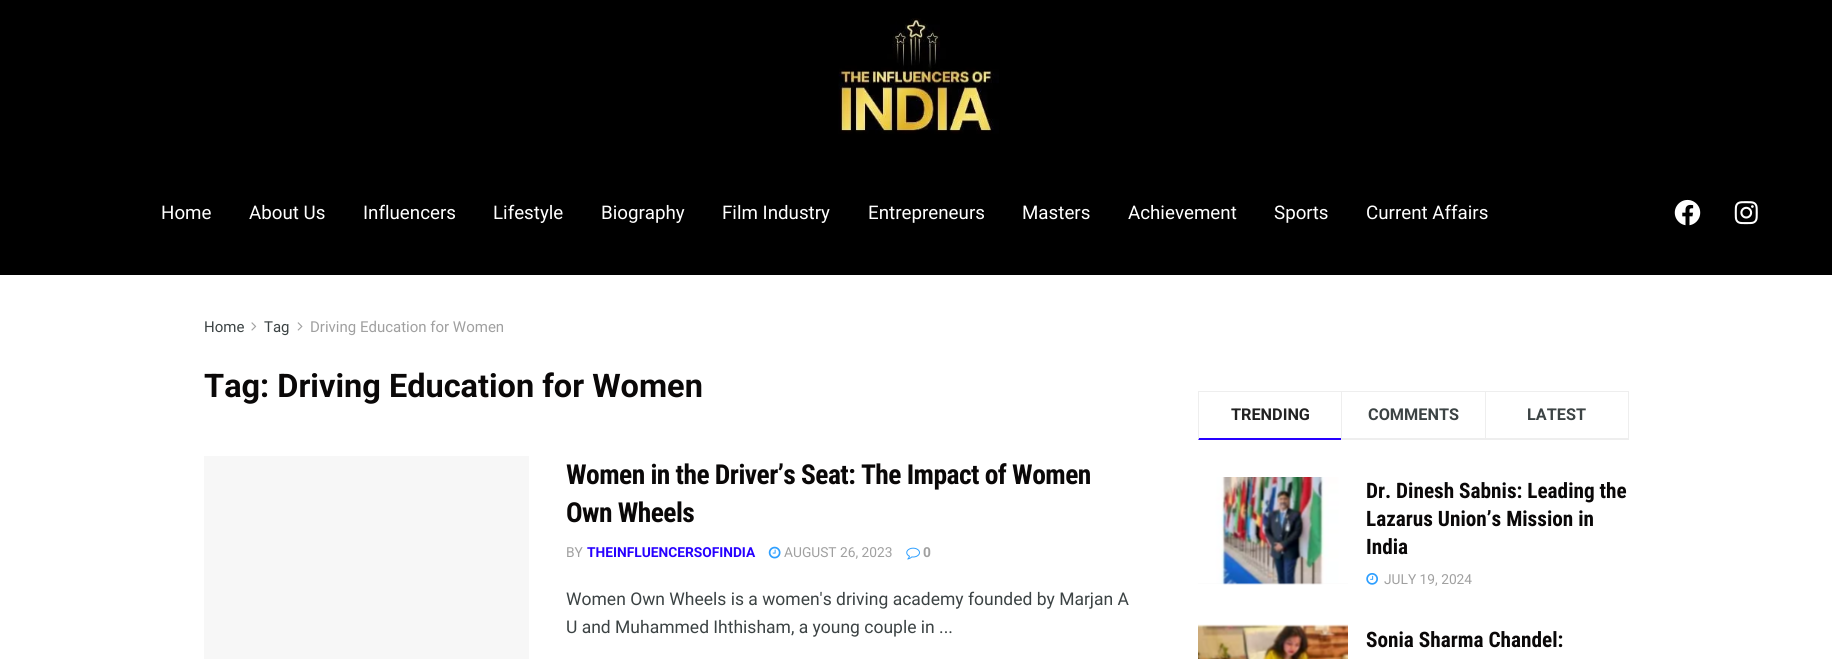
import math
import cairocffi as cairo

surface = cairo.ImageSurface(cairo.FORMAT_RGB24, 1832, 659)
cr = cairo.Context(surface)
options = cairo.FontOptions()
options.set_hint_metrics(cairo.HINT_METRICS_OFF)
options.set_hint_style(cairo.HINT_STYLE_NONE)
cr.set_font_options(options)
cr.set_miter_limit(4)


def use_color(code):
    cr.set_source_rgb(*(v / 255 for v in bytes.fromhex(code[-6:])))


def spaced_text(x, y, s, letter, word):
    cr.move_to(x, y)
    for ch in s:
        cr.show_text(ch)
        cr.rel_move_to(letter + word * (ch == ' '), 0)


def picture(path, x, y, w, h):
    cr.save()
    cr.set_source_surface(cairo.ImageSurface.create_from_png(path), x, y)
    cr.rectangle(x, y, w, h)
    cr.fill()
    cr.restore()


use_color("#ffffff")
cr.paint()
use_color("#000000")
cr.rectangle(0, 0, 1832, 275)
cr.fill()
picture("img1.png", 838, 18, 161, 116)
cr.select_font_face("Roboto")
cr.set_font_size(18.75)
use_color("#ffffff")
cr.move_to(161, 219)
cr.show_text("Home")
cr.move_to(249, 219)
cr.show_text("About Us")
cr.move_to(363, 219)
cr.show_text("Influencers")
cr.move_to(493, 219)
cr.show_text("Lifestyle")
cr.move_to(601, 219)
cr.show_text("Biography")
cr.move_to(722, 219)
cr.show_text("Film Industry")
cr.move_to(868, 219)
cr.show_text("Entrepreneurs")
cr.move_to(1022, 219)
cr.show_text("Masters")
cr.move_to(1128, 219)
cr.show_text("Achievement")
cr.move_to(1274, 219)
cr.show_text("Sports")
cr.move_to(1366, 219)
cr.show_text("Current Affairs")
picture("img2.png", 1674, 199, 27, 27)
picture("img3.png", 1734, 201, 24, 24)
cr.set_font_size(15)
use_color("#3c4344")
cr.move_to(204, 332)
cr.show_text("Home")
picture("img4.png", 251, 322, 6, 9)
cr.move_to(264, 332)
cr.show_text("Tag")
picture("img5.png", 297, 322, 6, 9)
use_color("#a0a0a0")
cr.move_to(310, 332)
cr.show_text("Driving Education for Women")
cr.select_font_face("Roboto", cairo.FONT_SLANT_NORMAL, cairo.FONT_WEIGHT_BOLD)
cr.set_font_size(32.5)
use_color("#0a0808")
cr.move_to(204, 397)
cr.show_text("Tag: Driving Education for Women")
use_color("#f7f7f7")
cr.rectangle(204, 456, 325, 203)
cr.fill()
cr.select_font_face("Roboto Condensed", cairo.FONT_SLANT_NORMAL, cairo.FONT_WEIGHT_BOLD)
cr.set_font_size(27.5)
use_color("#0a0808")
spaced_text(566, 484, "Women in the Driver’s Seat: The Impact of Women", -0.55, 0)
spaced_text(566, 522, "Own Wheels", -0.55, 0)
cr.select_font_face("Roboto")
cr.set_font_size(13.75)
use_color("#a0a0a0")
cr.move_to(566, 557)
cr.show_text("BY")
cr.select_font_face("Roboto", cairo.FONT_SLANT_NORMAL, cairo.FONT_WEIGHT_BOLD)
use_color("#2600ff")
cr.move_to(587, 557)
cr.show_text("THEINFLUENCERSOFINDIA")
picture("img6.png", 768, 546, 13, 13)
cr.select_font_face("Roboto")
use_color("#a0a0a0")
cr.move_to(784, 557)
cr.show_text("AUGUST 26, 2023")
picture("img7.png", 906, 547, 14, 13)
cr.select_font_face("Roboto", cairo.FONT_SLANT_NORMAL, cairo.FONT_WEIGHT_BOLD)
cr.move_to(923, 557)
cr.show_text("0")
cr.select_font_face("Roboto")
cr.set_font_size(17.5)
use_color("#3c4344")
cr.move_to(566, 605)
cr.show_text("Women Own Wheels is a women's driving academy founded by Marjan A")
cr.move_to(566, 633)
cr.show_text("U and Muhammed Ihthisham, a young couple in ...")
use_color("#eeeeee")
cr.rectangle(1198, 391, 431, 1)
cr.fill()
use_color("#2600ff")
cr.new_path()
cr.move_to(1341, 440)
cr.line_to(1198, 440)
cr.line_to(1199, 438)
cr.line_to(1341, 438)
cr.close_path()
cr.fill()
use_color("#eeeeee")
cr.new_path()
cr.move_to(1198, 440)
cr.line_to(1198, 391)
cr.line_to(1199, 392)
cr.line_to(1199, 438)
cr.close_path()
cr.fill()
cr.select_font_face("Roboto", cairo.FONT_SLANT_NORMAL, cairo.FONT_WEIGHT_BOLD)
cr.set_font_size(16.25)
use_color("#212121")
cr.move_to(1231, 420)
cr.show_text("TRENDING")
use_color("#eeeeee")
cr.rectangle(1341, 438, 144, 2)
cr.fill()
cr.rectangle(1341, 391, 1, 49)
cr.fill()
use_color("#3c4344")
cr.move_to(1368, 420)
cr.show_text("COMMENTS")
use_color("#eeeeee")
cr.rectangle(1628, 391, 1, 49)
cr.fill()
cr.rectangle(1485, 438, 144, 2)
cr.fill()
cr.rectangle(1485, 391, 1, 49)
cr.fill()
use_color("#3c4344")
cr.move_to(1527, 420)
cr.show_text("LATEST")
use_color("#f7f7f7")
cr.rectangle(1198, 583, 150, 1)
cr.fill()
picture("img8.png", 1198, 477, 150, 108)
cr.select_font_face("Roboto Condensed", cairo.FONT_SLANT_NORMAL, cairo.FONT_WEIGHT_BOLD)
cr.set_font_size(21.25)
use_color("#0a0808")
cr.move_to(1366, 498)
cr.show_text("Dr. Dinesh Sabnis: Leading the")
cr.move_to(1366, 526)
cr.show_text("Lazarus Union’s Mission in")
cr.move_to(1366, 554)
cr.show_text("India")
picture("img9.png", 1366, 573, 12, 12)
cr.select_font_face("Roboto")
cr.set_font_size(13.75)
use_color("#a0a0a0")
cr.move_to(1384, 584)
cr.show_text("JULY 19, 2024")
use_color("#f7f7f7")
cr.rectangle(1198, 625, 150, 1)
cr.fill()
picture("img10.png", 1198, 624, 150, 35)
cr.select_font_face("Roboto Condensed", cairo.FONT_SLANT_NORMAL, cairo.FONT_WEIGHT_BOLD)
cr.set_font_size(21.25)
use_color("#0a0808")
cr.move_to(1366, 647)
cr.show_text("Sonia Sharma Chandel:")
surface.write_to_png("result.png")
